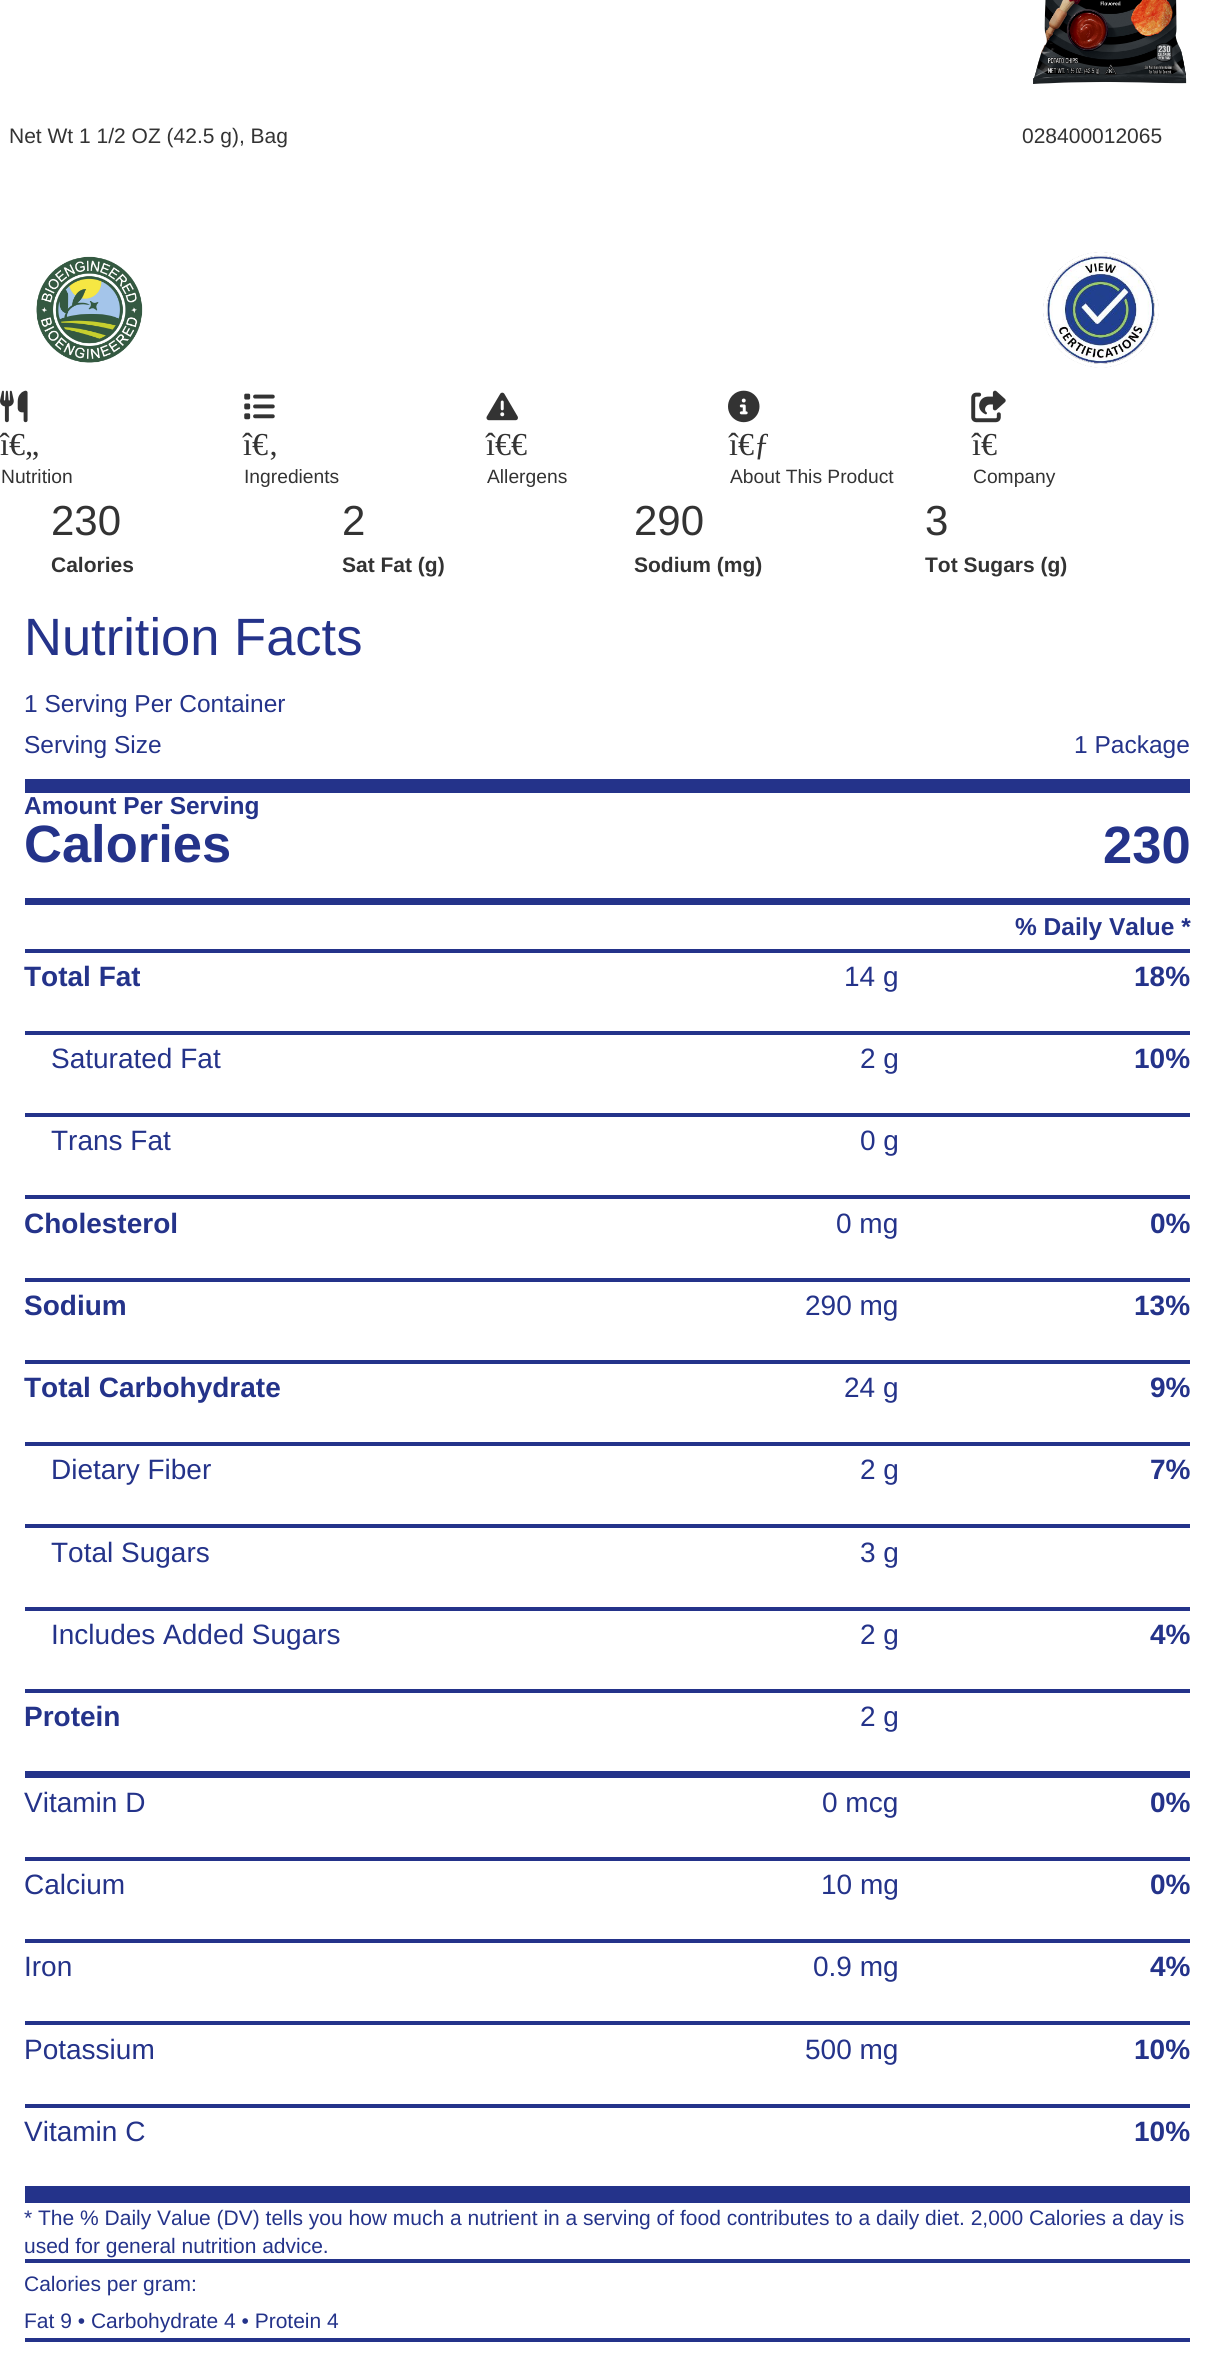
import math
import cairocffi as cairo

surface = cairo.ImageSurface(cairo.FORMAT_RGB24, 1213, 2361)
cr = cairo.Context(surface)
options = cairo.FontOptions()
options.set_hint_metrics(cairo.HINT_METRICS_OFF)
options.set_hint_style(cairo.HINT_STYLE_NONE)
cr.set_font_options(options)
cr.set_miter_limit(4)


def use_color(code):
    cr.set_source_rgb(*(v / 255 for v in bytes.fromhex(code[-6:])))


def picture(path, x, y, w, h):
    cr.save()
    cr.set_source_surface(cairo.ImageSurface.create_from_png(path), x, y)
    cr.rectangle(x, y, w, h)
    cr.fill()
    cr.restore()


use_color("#ffffff")
cr.paint()
picture("img1.png", 1033, 0, 154, 84)
cr.select_font_face("Liberation Sans")
cr.set_font_size(21)
use_color("#333333")
cr.move_to(9, 143)
cr.show_text("Net Wt 1 1/2 OZ (42.5 g), Bag")
cr.move_to(1022, 143)
cr.show_text("028400012065")
picture("img2.png", 36, 256, 107, 107)
picture("img3.png", 1043, 252, 116, 116)
picture("img4.png", 0, 390, 28, 33)
cr.select_font_face("Liberation Serif")
cr.set_font_size(32)
cr.move_to(0, 455)
cr.show_text("î€„")
cr.select_font_face("Liberation Sans")
cr.set_font_size(19.25)
cr.move_to(1, 483)
cr.show_text("Nutrition")
picture("img5.png", 244, 393, 31, 27)
cr.select_font_face("Liberation Serif")
cr.set_font_size(32)
cr.move_to(243, 455)
cr.show_text("î€‚")
cr.select_font_face("Liberation Sans")
cr.set_font_size(19.25)
cr.move_to(244, 483)
cr.show_text("Ingredients")
picture("img6.png", 486, 392, 32, 29)
cr.select_font_face("Liberation Serif")
cr.set_font_size(32)
cr.move_to(486, 455)
cr.show_text("î€€")
cr.select_font_face("Liberation Sans")
cr.set_font_size(19.25)
cr.move_to(487, 483)
cr.show_text("Allergens")
picture("img7.png", 728, 390, 32, 33)
cr.select_font_face("Liberation Serif")
cr.set_font_size(32)
cr.move_to(729, 455)
cr.show_text("î€ƒ")
cr.select_font_face("Liberation Sans")
cr.set_font_size(19.25)
cr.move_to(730, 483)
cr.show_text("About This Product")
picture("img8.png", 971, 390, 35, 33)
cr.select_font_face("Liberation Serif")
cr.set_font_size(32)
cr.move_to(972, 455)
cr.show_text("î€")
cr.select_font_face("Liberation Sans")
cr.set_font_size(19.25)
cr.move_to(973, 483)
cr.show_text("Company")
cr.set_font_size(42)
cr.move_to(51, 535)
cr.show_text("230")
cr.select_font_face("Liberation Sans", cairo.FONT_SLANT_NORMAL, cairo.FONT_WEIGHT_BOLD)
cr.set_font_size(21)
cr.move_to(51, 572)
cr.show_text("Calories")
cr.select_font_face("Liberation Sans")
cr.set_font_size(42)
cr.move_to(342, 535)
cr.show_text("2")
cr.select_font_face("Liberation Sans", cairo.FONT_SLANT_NORMAL, cairo.FONT_WEIGHT_BOLD)
cr.set_font_size(21)
cr.move_to(342, 572)
cr.show_text("Sat Fat (g)")
cr.select_font_face("Liberation Sans")
cr.set_font_size(42)
cr.move_to(634, 535)
cr.show_text("290")
cr.select_font_face("Liberation Sans", cairo.FONT_SLANT_NORMAL, cairo.FONT_WEIGHT_BOLD)
cr.set_font_size(21)
cr.move_to(634, 572)
cr.show_text("Sodium (mg)")
cr.select_font_face("Liberation Sans")
cr.set_font_size(42)
cr.move_to(925, 535)
cr.show_text("3")
cr.select_font_face("Liberation Sans", cairo.FONT_SLANT_NORMAL, cairo.FONT_WEIGHT_BOLD)
cr.set_font_size(21)
cr.move_to(925, 572)
cr.show_text("Tot Sugars (g)")
use_color("#24338a")
cr.rectangle(25, 779, 1165, 14)
cr.fill()
cr.select_font_face("Liberation Sans")
cr.set_font_size(52.5)
cr.move_to(24, 655)
cr.show_text("Nutrition Facts")
cr.set_font_size(24.5)
cr.move_to(24, 712)
cr.show_text("1 Serving Per Container")
cr.move_to(24, 753)
cr.show_text("Serving Size")
cr.move_to(1074, 753)
cr.show_text("1 Package")
cr.select_font_face("Liberation Sans", cairo.FONT_SLANT_NORMAL, cairo.FONT_WEIGHT_BOLD)
cr.move_to(24, 814)
cr.show_text("Amount Per Serving")
cr.rectangle(25, 2186, 1165, 17)
cr.fill()
cr.rectangle(25, 898, 1165, 7)
cr.fill()
cr.set_font_size(52.5)
cr.move_to(24, 862)
cr.show_text("Calories")
cr.move_to(1103, 863)
cr.show_text("230")
cr.rectangle(25, 949, 1165, 4)
cr.fill()
cr.set_font_size(24.5)
cr.move_to(1015, 935)
cr.show_text("% Daily Value *")
cr.rectangle(25, 1031, 1165, 4)
cr.fill()
cr.set_font_size(28)
cr.move_to(24, 986)
cr.show_text("Total Fat")
cr.select_font_face("Liberation Sans")
cr.move_to(844, 986)
cr.show_text("14 g")
cr.select_font_face("Liberation Sans", cairo.FONT_SLANT_NORMAL, cairo.FONT_WEIGHT_BOLD)
cr.move_to(1134, 986)
cr.show_text("18%")
cr.rectangle(25, 1113, 1165, 4)
cr.fill()
cr.select_font_face("Liberation Sans")
cr.move_to(51, 1068)
cr.show_text("Saturated Fat")
cr.move_to(860, 1068)
cr.show_text("2 g")
cr.select_font_face("Liberation Sans", cairo.FONT_SLANT_NORMAL, cairo.FONT_WEIGHT_BOLD)
cr.move_to(1134, 1068)
cr.show_text("10%")
cr.rectangle(25, 1195, 1165, 4)
cr.fill()
cr.select_font_face("Liberation Sans")
cr.move_to(51, 1150)
cr.show_text("Trans Fat")
cr.move_to(860, 1150)
cr.show_text("0 g")
cr.rectangle(25, 1278, 1165, 4)
cr.fill()
cr.select_font_face("Liberation Sans", cairo.FONT_SLANT_NORMAL, cairo.FONT_WEIGHT_BOLD)
cr.move_to(24, 1233)
cr.show_text("Cholesterol")
cr.select_font_face("Liberation Sans")
cr.move_to(836, 1233)
cr.show_text("0 mg")
cr.select_font_face("Liberation Sans", cairo.FONT_SLANT_NORMAL, cairo.FONT_WEIGHT_BOLD)
cr.move_to(1150, 1233)
cr.show_text("0%")
cr.rectangle(25, 1360, 1165, 4)
cr.fill()
cr.move_to(24, 1315)
cr.show_text("Sodium")
cr.select_font_face("Liberation Sans")
cr.move_to(805, 1315)
cr.show_text("290 mg")
cr.select_font_face("Liberation Sans", cairo.FONT_SLANT_NORMAL, cairo.FONT_WEIGHT_BOLD)
cr.move_to(1134, 1315)
cr.show_text("13%")
cr.rectangle(25, 1442, 1165, 4)
cr.fill()
cr.move_to(24, 1397)
cr.show_text("Total Carbohydrate")
cr.select_font_face("Liberation Sans")
cr.move_to(844, 1397)
cr.show_text("24 g")
cr.select_font_face("Liberation Sans", cairo.FONT_SLANT_NORMAL, cairo.FONT_WEIGHT_BOLD)
cr.move_to(1150, 1397)
cr.show_text("9%")
cr.rectangle(25, 1524, 1165, 4)
cr.fill()
cr.select_font_face("Liberation Sans")
cr.move_to(51, 1479)
cr.show_text("Dietary Fiber")
cr.move_to(860, 1479)
cr.show_text("2 g")
cr.select_font_face("Liberation Sans", cairo.FONT_SLANT_NORMAL, cairo.FONT_WEIGHT_BOLD)
cr.move_to(1150, 1479)
cr.show_text("7%")
cr.rectangle(25, 1607, 1165, 4)
cr.fill()
cr.select_font_face("Liberation Sans")
cr.move_to(51, 1562)
cr.show_text("Total Sugars")
cr.move_to(860, 1562)
cr.show_text("3 g")
cr.rectangle(25, 1689, 1165, 4)
cr.fill()
cr.move_to(51, 1644)
cr.show_text("Includes Added Sugars")
cr.move_to(860, 1644)
cr.show_text("2 g")
cr.select_font_face("Liberation Sans", cairo.FONT_SLANT_NORMAL, cairo.FONT_WEIGHT_BOLD)
cr.move_to(1150, 1644)
cr.show_text("4%")
cr.rectangle(25, 1771, 1165, 7)
cr.fill()
cr.move_to(24, 1726)
cr.show_text("Protein")
cr.select_font_face("Liberation Sans")
cr.move_to(860, 1726)
cr.show_text("2 g")
cr.rectangle(25, 1857, 1165, 4)
cr.fill()
cr.move_to(24, 1812)
cr.show_text("Vitamin D")
cr.move_to(822, 1812)
cr.show_text("0 mcg")
cr.select_font_face("Liberation Sans", cairo.FONT_SLANT_NORMAL, cairo.FONT_WEIGHT_BOLD)
cr.move_to(1150, 1812)
cr.show_text("0%")
cr.rectangle(25, 1939, 1165, 4)
cr.fill()
cr.select_font_face("Liberation Sans")
cr.move_to(24, 1894)
cr.show_text("Calcium")
cr.move_to(821, 1894)
cr.show_text("10 mg")
cr.select_font_face("Liberation Sans", cairo.FONT_SLANT_NORMAL, cairo.FONT_WEIGHT_BOLD)
cr.move_to(1150, 1894)
cr.show_text("0%")
cr.rectangle(25, 2021, 1165, 4)
cr.fill()
cr.select_font_face("Liberation Sans")
cr.move_to(24, 1976)
cr.show_text("Iron")
cr.move_to(813, 1976)
cr.show_text("0.9 mg")
cr.select_font_face("Liberation Sans", cairo.FONT_SLANT_NORMAL, cairo.FONT_WEIGHT_BOLD)
cr.move_to(1150, 1976)
cr.show_text("4%")
cr.rectangle(25, 2104, 1165, 4)
cr.fill()
cr.select_font_face("Liberation Sans")
cr.move_to(24, 2059)
cr.show_text("Potassium")
cr.move_to(805, 2059)
cr.show_text("500 mg")
cr.select_font_face("Liberation Sans", cairo.FONT_SLANT_NORMAL, cairo.FONT_WEIGHT_BOLD)
cr.move_to(1134, 2059)
cr.show_text("10%")
cr.select_font_face("Liberation Sans")
cr.move_to(24, 2141)
cr.show_text("Vitamin C")
cr.select_font_face("Liberation Sans", cairo.FONT_SLANT_NORMAL, cairo.FONT_WEIGHT_BOLD)
cr.move_to(1134, 2141)
cr.show_text("10%")
cr.rectangle(25, 2259, 1165, 4)
cr.fill()
cr.select_font_face("Liberation Sans")
cr.set_font_size(21)
cr.move_to(24, 2225)
cr.show_text("* The % Daily Value (DV) tells you how much a nutrient in a serving of food contributes to a daily diet. 2,000 Calories a day is")
cr.move_to(24, 2253)
cr.show_text("used for general nutrition advice.")
cr.rectangle(25, 2338, 1165, 4)
cr.fill()
cr.move_to(24, 2291)
cr.show_text("Calories per gram:")
cr.move_to(24, 2328)
cr.show_text("Fat 9 • Carbohydrate 4 • Protein 4")
surface.write_to_png("result.png")
